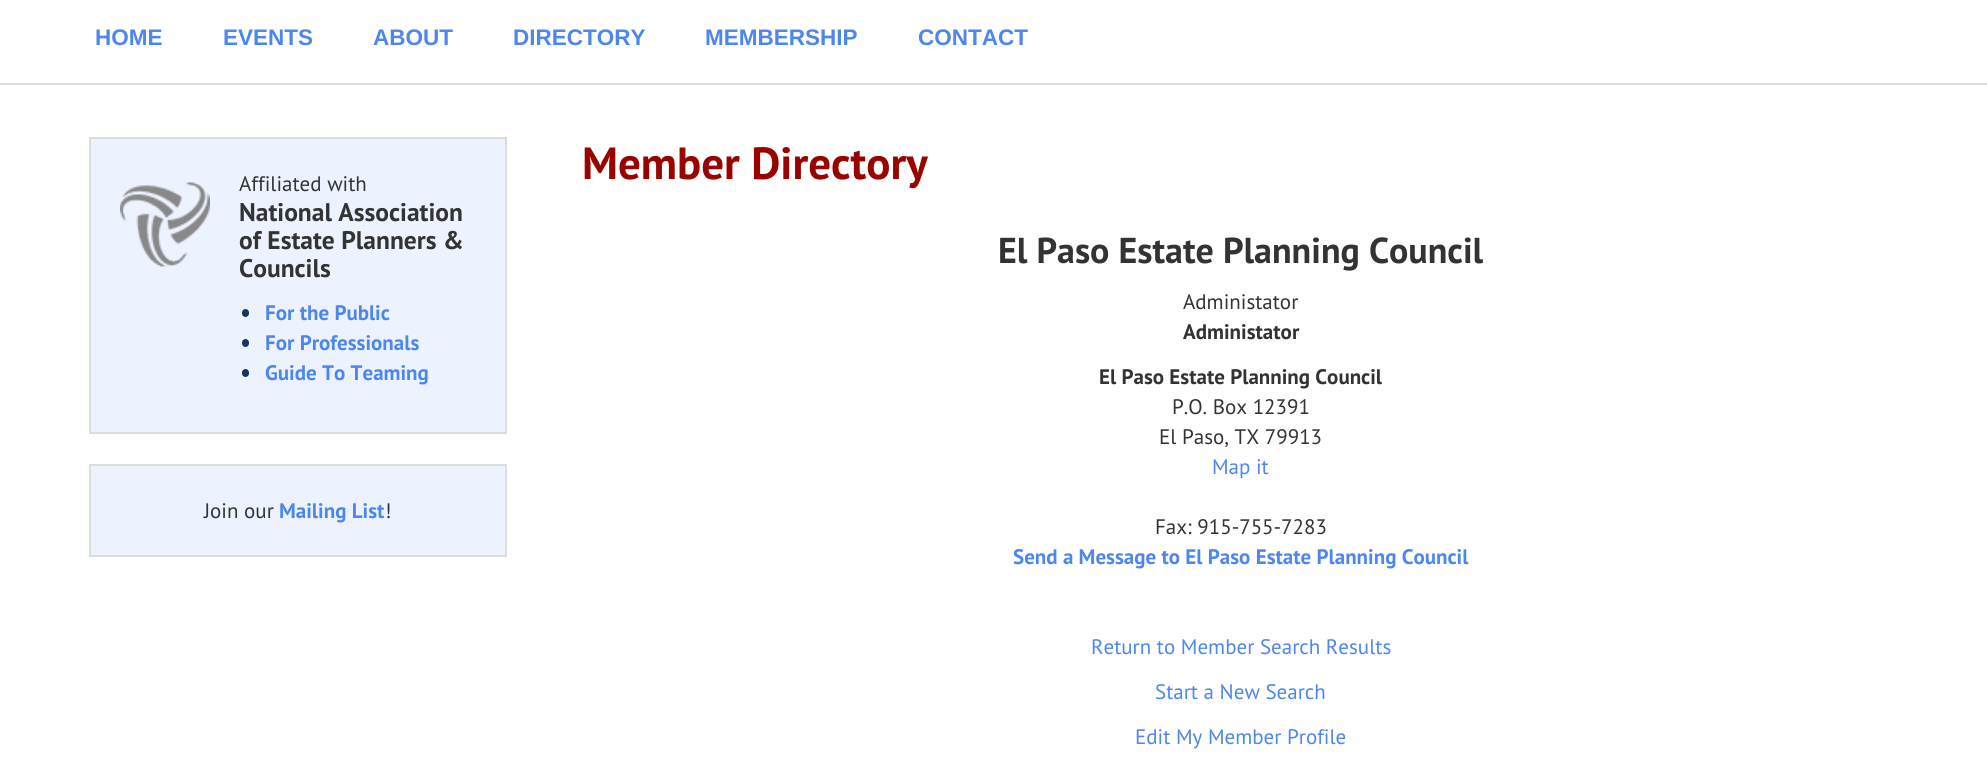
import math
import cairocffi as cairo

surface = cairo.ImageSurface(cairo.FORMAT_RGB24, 1987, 778)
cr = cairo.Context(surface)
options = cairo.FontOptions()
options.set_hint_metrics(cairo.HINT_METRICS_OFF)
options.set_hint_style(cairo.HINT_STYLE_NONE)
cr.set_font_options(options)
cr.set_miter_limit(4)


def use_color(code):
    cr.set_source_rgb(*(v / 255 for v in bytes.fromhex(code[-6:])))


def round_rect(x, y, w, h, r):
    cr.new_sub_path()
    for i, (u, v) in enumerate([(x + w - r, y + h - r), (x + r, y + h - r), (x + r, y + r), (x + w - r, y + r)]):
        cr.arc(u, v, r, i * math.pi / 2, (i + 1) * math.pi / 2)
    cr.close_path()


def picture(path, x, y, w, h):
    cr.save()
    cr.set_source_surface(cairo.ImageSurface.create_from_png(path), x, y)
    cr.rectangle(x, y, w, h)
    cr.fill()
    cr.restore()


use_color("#ffffff")
cr.paint()
use_color("#dddddd")
cr.rectangle(0, 83, 1987, 2)
cr.fill()
cr.select_font_face("Liberation Sans", cairo.FONT_SLANT_NORMAL, cairo.FONT_WEIGHT_BOLD)
cr.set_font_size(22.5)
use_color("#4d86ee")
cr.move_to(95, 45)
cr.show_text("HOME")
cr.move_to(223, 45)
cr.show_text("EVENTS")
cr.move_to(373, 45)
cr.show_text("ABOUT")
cr.move_to(513, 45)
cr.show_text("DIRECTORY")
cr.move_to(705, 45)
cr.show_text("MEMBERSHIP")
cr.move_to(918, 45)
cr.show_text("CONTACT")
use_color("#ecf3ff")
cr.rectangle(90, 138, 416, 295)
cr.fill_preserve()
use_color("#dddddd")
cr.stroke()
picture("img1.png", 120, 182, 90, 85)
cr.select_font_face("PT Sans")
cr.set_font_size(21)
use_color("#333333")
cr.move_to(239, 191)
cr.show_text("Affiliated with")
cr.select_font_face("PT Sans", cairo.FONT_SLANT_NORMAL, cairo.FONT_WEIGHT_BOLD)
cr.set_font_size(25.5)
cr.move_to(239, 221)
cr.show_text("National Association")
cr.move_to(239, 249)
cr.show_text("of Estate Planners &")
cr.move_to(239, 277)
cr.show_text("Councils")
use_color("#16365d")
round_rect(242, 309, 7, 8, 3.5)
cr.fill()
cr.set_font_size(21)
use_color("#4d86ee")
cr.move_to(265, 320)
cr.show_text("For the Public")
use_color("#16365d")
round_rect(242, 339, 7, 8, 3.5)
cr.fill()
use_color("#4d86ee")
cr.move_to(265, 350)
cr.show_text("For Professionals")
use_color("#16365d")
round_rect(242, 369, 7, 8, 3.5)
cr.fill()
use_color("#4d86ee")
cr.move_to(265, 380)
cr.show_text("Guide To Teaming")
use_color("#ecf3ff")
cr.rectangle(90, 465, 416, 91)
cr.fill_preserve()
use_color("#dddddd")
cr.stroke()
cr.select_font_face("PT Sans")
use_color("#333333")
cr.move_to(204, 518)
cr.show_text("Join our")
cr.select_font_face("PT Sans", cairo.FONT_SLANT_NORMAL, cairo.FONT_WEIGHT_BOLD)
use_color("#4d86ee")
cr.move_to(279, 518)
cr.show_text("Mailing List")
cr.select_font_face("PT Sans")
use_color("#333333")
cr.move_to(385, 518)
cr.show_text("!")
cr.select_font_face("PT Sans", cairo.FONT_SLANT_NORMAL, cairo.FONT_WEIGHT_BOLD)
cr.set_font_size(45)
use_color("#990400")
cr.move_to(582, 179)
cr.show_text("Member Directory")
cr.set_font_size(36)
use_color("#333333")
cr.move_to(998, 263)
cr.show_text("El Paso Estate Planning Council")
cr.select_font_face("PT Sans")
cr.set_font_size(21)
cr.move_to(1183, 309)
cr.show_text("Administator")
cr.select_font_face("PT Sans", cairo.FONT_SLANT_NORMAL, cairo.FONT_WEIGHT_BOLD)
cr.move_to(1183, 339)
cr.show_text("Administator")
cr.move_to(1099, 384)
cr.show_text("El Paso Estate Planning Council")
cr.select_font_face("PT Sans")
cr.move_to(1172, 414)
cr.show_text("P.O. Box 12391")
cr.move_to(1159, 444)
cr.show_text("El Paso, TX 79913")
use_color("#4d86ee")
cr.move_to(1212, 474)
cr.show_text("Map it")
use_color("#333333")
cr.move_to(1155, 534)
cr.show_text("Fax: 915-755-7283")
cr.select_font_face("PT Sans", cairo.FONT_SLANT_NORMAL, cairo.FONT_WEIGHT_BOLD)
use_color("#4d86ee")
cr.move_to(1013, 564)
cr.show_text("Send a Message to El Paso Estate Planning Council")
cr.select_font_face("PT Sans")
cr.move_to(1091, 654)
cr.show_text("Return to Member Search Results")
cr.move_to(1155, 699)
cr.show_text("Start a New Search")
cr.move_to(1135, 744)
cr.show_text("Edit My Member Profile")
surface.write_to_png("result.png")
